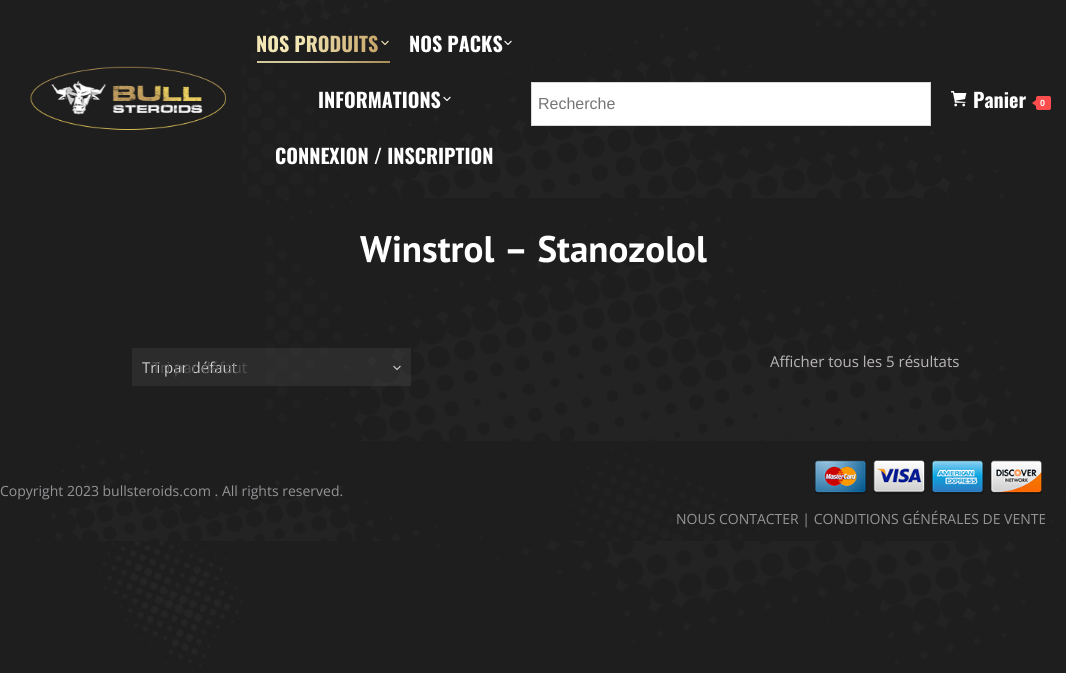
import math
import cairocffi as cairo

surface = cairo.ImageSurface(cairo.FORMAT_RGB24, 1066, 673)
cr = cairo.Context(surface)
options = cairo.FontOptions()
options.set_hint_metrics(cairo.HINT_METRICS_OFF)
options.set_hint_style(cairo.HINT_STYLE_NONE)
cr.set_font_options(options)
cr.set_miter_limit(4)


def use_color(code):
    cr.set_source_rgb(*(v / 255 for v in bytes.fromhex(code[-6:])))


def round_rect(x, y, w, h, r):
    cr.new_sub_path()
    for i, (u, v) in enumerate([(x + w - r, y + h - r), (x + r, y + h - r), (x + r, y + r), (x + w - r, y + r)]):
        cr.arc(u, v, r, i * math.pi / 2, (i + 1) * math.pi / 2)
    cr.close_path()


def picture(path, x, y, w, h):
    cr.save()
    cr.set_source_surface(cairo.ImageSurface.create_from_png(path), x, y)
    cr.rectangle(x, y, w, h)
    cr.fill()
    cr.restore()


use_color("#1e1e1e")
cr.paint()
picture("img1.png", 99, 541, 926, 126)
picture("img2.png", 266, 198, 751, 243)
picture("img3.png", 242, 0, 762, 198)
picture("img4.png", 30, 66, 196, 64)
cr.select_font_face("Oswald", cairo.FONT_SLANT_NORMAL, cairo.FONT_WEIGHT_BOLD)
cr.set_font_size(20)
gradient = cairo.LinearGradient(256, 43, 389, 43)
gradient.add_color_stop_rgba(0.32, 0.953, 0.906, 0.714, 1)
gradient.add_color_stop_rgba(1, 0.761, 0.62, 0.373, 1)
cr.set_source(gradient)
cr.move_to(256, 52)
cr.show_text("NOS PRODUITS")
picture("img5.png", 381, 40, 8, 5)
gradient = cairo.LinearGradient(290, 28, 357, 96)
gradient.add_color_stop_rgba(0.3, 0.827, 0.788, 0.624, 1)
gradient.add_color_stop_rgba(1, 0.663, 0.545, 0.333, 1)
cr.set_source(gradient)
cr.rectangle(257, 61, 133, 2)
cr.fill()
use_color("#ffffff")
cr.move_to(409, 52)
cr.show_text("NOS PACKS")
picture("img6.png", 504, 40, 8, 5)
cr.move_to(318, 108)
cr.show_text("INFORMATIONS")
picture("img6.png", 443, 96, 8, 5)
cr.move_to(275, 164)
cr.show_text("CONNEXION / INSCRIPTION")
cr.rectangle(531.5, 82.5, 399, 43)
cr.fill_preserve()
use_color("#d8d8d8")
cr.set_line_width(1)
cr.stroke()
cr.select_font_face("Liberation Sans")
cr.set_font_size(16)
use_color("#757575")
cr.move_to(538, 109)
cr.show_text("Recherche")
picture("img7.png", 951, 91, 16, 16)
cr.select_font_face("Oswald", cairo.FONT_SLANT_NORMAL, cairo.FONT_WEIGHT_BOLD)
cr.set_font_size(20)
use_color("#ffffff")
cr.move_to(973, 108)
cr.show_text("Panier")
use_color("#ff4d4d")
round_rect(1036, 96, 15, 14, 2)
cr.fill()
cr.new_path()
cr.move_to(1036, 100)
cr.line_to(1036, 106)
cr.line_to(1032, 103)
cr.close_path()
cr.fill()
cr.select_font_face("Liberation Sans", cairo.FONT_SLANT_NORMAL, cairo.FONT_WEIGHT_BOLD)
cr.set_font_size(9)
use_color("#ffffff")
cr.move_to(1040, 106)
cr.show_text("0")
cr.select_font_face("PT Sans", cairo.FONT_SLANT_NORMAL, cairo.FONT_WEIGHT_BOLD)
cr.set_font_size(37)
cr.move_to(360, 262)
cr.show_text("Winstrol – Stanozolol")
cr.set_source_rgba(0.808, 0.808, 0.808, 0.08)
cr.rectangle(132, 348, 279, 38)
cr.fill()
picture("img8.png", 393, 365, 8, 5)
cr.select_font_face("Open Sans")
cr.set_font_size(15)
use_color("#cecece")
cr.move_to(142, 373)
cr.show_text("Tri par défaut")
use_color("#525252")
cr.move_to(152, 373)
cr.show_text("Tri par défaut")
use_color("#bab6b6")
cr.move_to(770, 367)
cr.show_text("Afficher tous les 5 résultats")
picture("img9.png", 33, 441, 1033, 100)
cr.set_font_size(14)
use_color("#949497")
cr.move_to(0, 496)
cr.show_text("Copyright 2023 bullsteroids.com . All rights reserved.")
picture("img10.png", 815, 460, 227, 34)
cr.move_to(676, 524)
cr.show_text("NOUS CONTACTER | CONDITIONS GÉNÉRALES DE VENTE")
surface.write_to_png("result.png")
